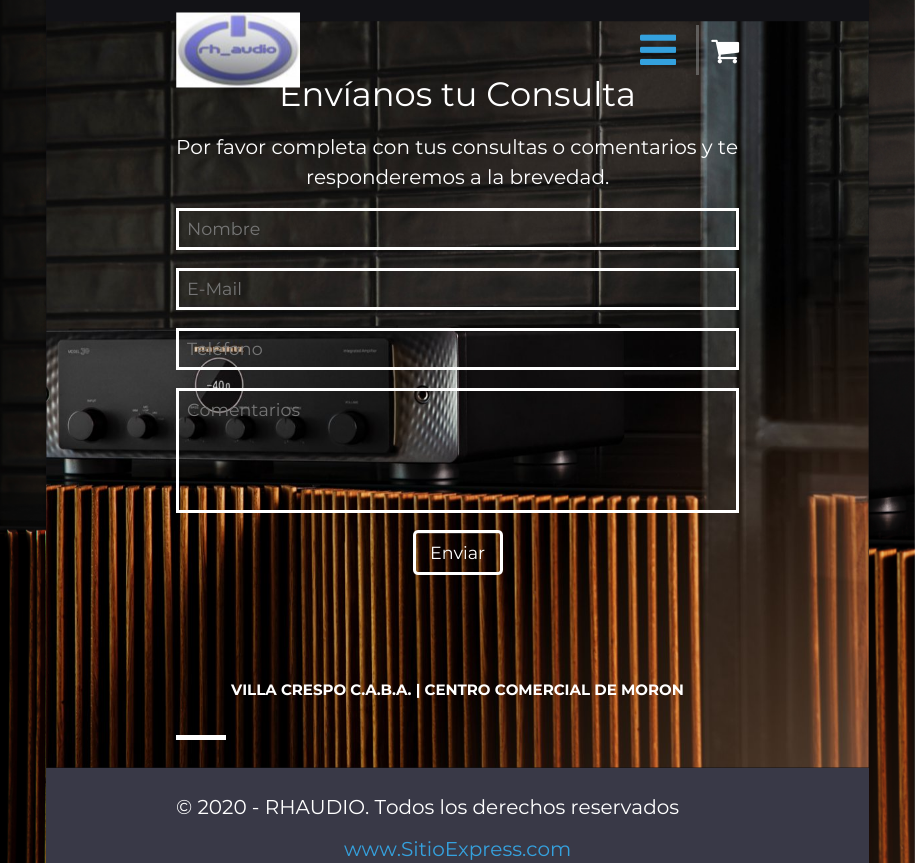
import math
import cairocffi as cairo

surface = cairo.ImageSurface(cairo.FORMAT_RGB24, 915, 863)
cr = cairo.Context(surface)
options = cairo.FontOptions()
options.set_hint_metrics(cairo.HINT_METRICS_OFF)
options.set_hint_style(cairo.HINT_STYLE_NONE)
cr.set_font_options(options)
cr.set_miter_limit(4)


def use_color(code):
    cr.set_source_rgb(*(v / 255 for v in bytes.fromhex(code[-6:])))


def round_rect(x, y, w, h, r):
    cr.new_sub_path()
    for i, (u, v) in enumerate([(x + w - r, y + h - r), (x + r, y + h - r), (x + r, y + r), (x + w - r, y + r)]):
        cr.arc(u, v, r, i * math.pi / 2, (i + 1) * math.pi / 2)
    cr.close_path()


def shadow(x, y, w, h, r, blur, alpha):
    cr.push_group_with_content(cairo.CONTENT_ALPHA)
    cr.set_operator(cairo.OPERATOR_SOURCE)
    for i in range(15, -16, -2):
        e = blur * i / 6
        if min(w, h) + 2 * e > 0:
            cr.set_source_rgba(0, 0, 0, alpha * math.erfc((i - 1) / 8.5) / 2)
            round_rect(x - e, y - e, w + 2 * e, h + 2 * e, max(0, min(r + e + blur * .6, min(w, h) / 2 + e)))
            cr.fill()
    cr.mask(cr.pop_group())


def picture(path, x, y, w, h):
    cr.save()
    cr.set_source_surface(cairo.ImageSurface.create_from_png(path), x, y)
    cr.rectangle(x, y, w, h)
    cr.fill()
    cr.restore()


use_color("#ffffff")
cr.paint()
picture("img1.png", 0, 0, 915, 863)
use_color("#000000")
shadow(46, 0, 823, 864, 0, 3, 0.35)
use_color("#121216")
cr.rectangle(46, 0, 823, 768)
cr.fill()
picture("img5.png", 46, 21, 823, 747)
cr.select_font_face("Montserrat")
cr.set_font_size(33.75)
use_color("#ffffff")
cr.move_to(279, 106)
cr.show_text("Envíanos tu Consulta")
picture("img2.png", 176, 12, 124, 76)
picture("img3.png", 640, 34, 36, 31)
cr.set_source_rgba(0.588, 0.588, 0.588, 0.5)
cr.rectangle(696, 25, 3, 50)
cr.fill()
picture("img4.png", 711, 39, 29, 25)
cr.set_font_size(20)
use_color("#ffffff")
cr.move_to(176, 154)
cr.show_text("Por favor completa con tus consultas o comentarios y te")
cr.move_to(306, 184)
cr.show_text("responderemos a la brevedad.")
cr.rectangle(177.5, 209.5, 560, 39)
cr.set_line_width(3)
cr.stroke()
cr.set_font_size(17.5)
use_color("#757575")
cr.move_to(187, 235)
cr.show_text("Nombre")
cr.rectangle(177.5, 269.5, 560, 39)
use_color("#ffffff")
cr.stroke()
use_color("#757575")
cr.move_to(187, 295)
cr.show_text("E-Mail")
cr.rectangle(177.5, 329.5, 560, 39)
use_color("#ffffff")
cr.stroke()
use_color("#757575")
cr.move_to(187, 355)
cr.show_text("Teléfono")
cr.rectangle(177.5, 389.5, 560, 122)
use_color("#ffffff")
cr.stroke()
use_color("#757575")
cr.move_to(187, 416)
cr.show_text("Comentarios")
cr.save()
cr.set_fill_rule(cairo.FILL_RULE_EVEN_ODD)
cr.new_path()
cr.move_to(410, 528)
cr.line_to(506, 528)
cr.line_to(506, 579)
cr.line_to(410, 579)
cr.close_path()
cr.move_to(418, 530)
cr.line_to(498, 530)
cr.curve_to(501, 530, 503, 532, 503, 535)
cr.line_to(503, 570)
cr.curve_to(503, 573, 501, 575, 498, 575)
cr.line_to(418, 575)
cr.curve_to(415, 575, 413, 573, 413, 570)
cr.line_to(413, 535)
cr.curve_to(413, 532, 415, 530, 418, 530)
cr.close_path()
cr.clip()
use_color("#000000")
shadow(413, 531, 90, 45, 5, 0.5, 0.07)
cr.restore()
cr.set_source_rgba(1, 1, 1, 0.15)
cr.new_path()
cr.move_to(418, 534)
cr.line_to(498, 534)
cr.curve_to(499, 534, 500, 535, 500, 536)
cr.curve_to(500, 534, 499, 533, 498, 533)
cr.line_to(431, 533)
cr.curve_to(431, 533, 415, 529, 415, 536)
cr.curve_to(415, 535, 416, 534, 418, 534)
cr.close_path()
cr.fill()
round_rect(414.5, 531.5, 87, 42, 3.5)
use_color("#ffffff")
cr.stroke()
cr.move_to(430, 559)
cr.show_text("Enviar")
cr.select_font_face("Montserrat", cairo.FONT_SLANT_NORMAL, cairo.FONT_WEIGHT_BOLD)
cr.set_font_size(15)
cr.move_to(231, 695)
cr.show_text("VILLA CRESPO C.A.B.A. | CENTRO COMERCIAL DE MORON")
cr.rectangle(176, 735, 50, 5)
cr.fill()
use_color("#393947")
cr.rectangle(46, 768, 823, 95)
cr.fill()
cr.select_font_face("Montserrat")
cr.set_font_size(20)
use_color("#ffffff")
cr.move_to(176, 814)
cr.show_text("© 2020 - RHAUDIO. Todos los derechos reservados")
use_color("#34a1de")
cr.move_to(344, 856)
cr.show_text("www.SitioExpress.com")
surface.write_to_png("result.png")
